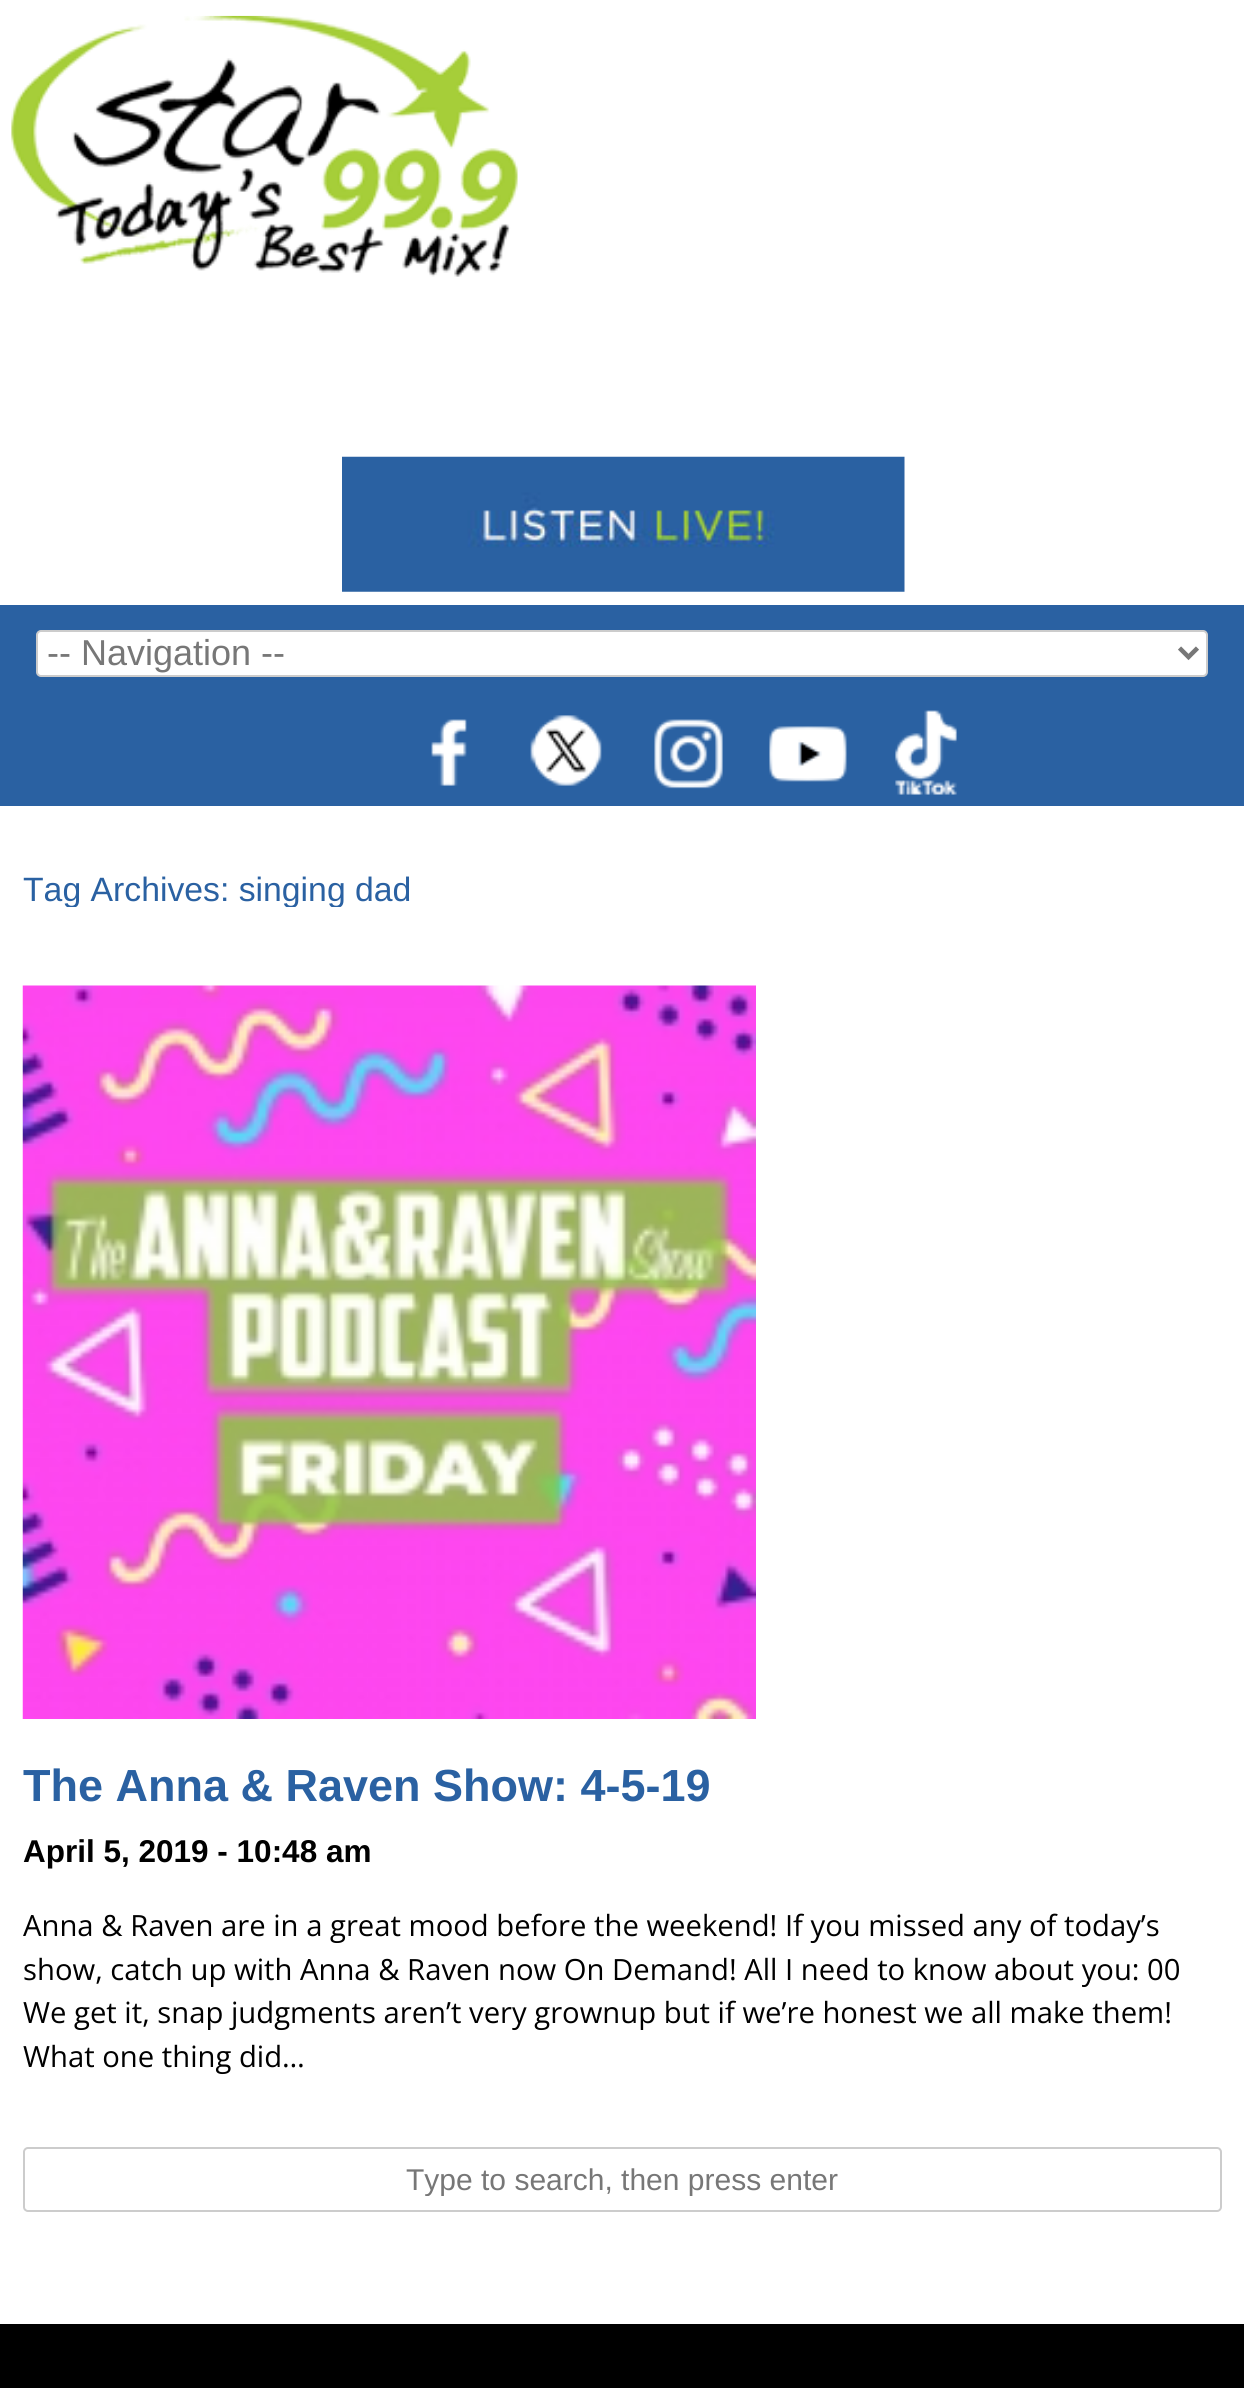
import math
import cairocffi as cairo

surface = cairo.ImageSurface(cairo.FORMAT_RGB24, 1244, 2388)
cr = cairo.Context(surface)
options = cairo.FontOptions()
options.set_hint_metrics(cairo.HINT_METRICS_OFF)
options.set_hint_style(cairo.HINT_STYLE_NONE)
cr.set_font_options(options)
cr.set_miter_limit(4)


def use_color(code):
    cr.set_source_rgb(*(v / 255 for v in bytes.fromhex(code[-6:])))


def round_rect(x, y, w, h, r):
    cr.new_sub_path()
    for i, (u, v) in enumerate([(x + w - r, y + h - r), (x + r, y + h - r), (x + r, y + r), (x + w - r, y + r)]):
        cr.arc(u, v, r, i * math.pi / 2, (i + 1) * math.pi / 2)
    cr.close_path()


def picture(path, x, y, w, h):
    cr.save()
    cr.set_source_surface(cairo.ImageSurface.create_from_png(path), x, y)
    cr.rectangle(x, y, w, h)
    cr.fill()
    cr.restore()


use_color("#ffffff")
cr.paint()
picture("img1.png", 11, 15, 507, 262)
picture("img2.png", 342, 456, 563, 136)
use_color("#2a61a2")
cr.rectangle(0, 605, 1244, 201)
cr.fill()
use_color("#ffffff")
round_rect(37, 631, 1170, 45, 4)
cr.fill_preserve()
use_color("#cccccc")
cr.stroke()
cr.new_path()
cr.move_to(1179.5, 648)
cr.line_to(1188.5, 657)
cr.line_to(1197.5, 648)
use_color("#777777")
cr.set_line_width(4.5)
cr.stroke()
cr.select_font_face("Liberation Sans")
cr.set_font_size(36)
cr.move_to(47, 665)
cr.show_text("-- Navigation --")
picture("img3.png", 431, 719, 36, 67)
picture("img4.png", 530, 715, 72, 71)
picture("img5.png", 654, 719, 69, 70)
picture("img6.png", 769, 726, 78, 56)
picture("img7.png", 895, 710, 62, 85)
cr.save()
cr.rectangle(23, 873, 1199, 34)
cr.clip()
cr.set_font_size(33.75)
use_color("#2a61a2")
cr.move_to(23, 901)
cr.show_text("Tag Archives: singing dad")
cr.restore()
picture("img8.png", 22, 985, 734, 734)
cr.select_font_face("Liberation Sans", cairo.FONT_SLANT_NORMAL, cairo.FONT_WEIGHT_BOLD)
cr.set_font_size(45)
use_color("#2a61a2")
cr.move_to(23, 1801)
cr.show_text("The Anna & Raven Show: 4-5-19")
cr.set_font_size(31.5)
use_color("#000000")
cr.move_to(23, 1862)
cr.show_text("April 5, 2019 - 10:48 am")
cr.select_font_face("Open Sans")
cr.set_font_size(29.25)
cr.move_to(23, 1936)
cr.show_text("Anna & Raven are in a great mood before the weekend! If you missed any of today’s")
cr.move_to(23, 1980)
cr.show_text("show, catch up with Anna & Raven now On Demand! All I need to know about you: 00")
cr.move_to(23, 2023)
cr.show_text("We get it, snap judgments aren’t very grownup but if we’re honest we all make them!")
cr.move_to(23, 2067)
cr.show_text("What one thing did…")
round_rect(24, 2148, 1197, 63, 4)
use_color("#cccccc")
cr.set_line_width(2)
cr.stroke()
cr.save()
cr.rectangle(34, 2162, 1177, 34)
cr.clip()
cr.select_font_face("Liberation Sans")
cr.set_font_size(30)
use_color("#777777")
cr.move_to(406, 2190)
cr.show_text("Type to search, then press enter")
cr.restore()
use_color("#000000")
cr.rectangle(0, 2324, 1244, 64)
cr.fill()
surface.write_to_png("result.png")
